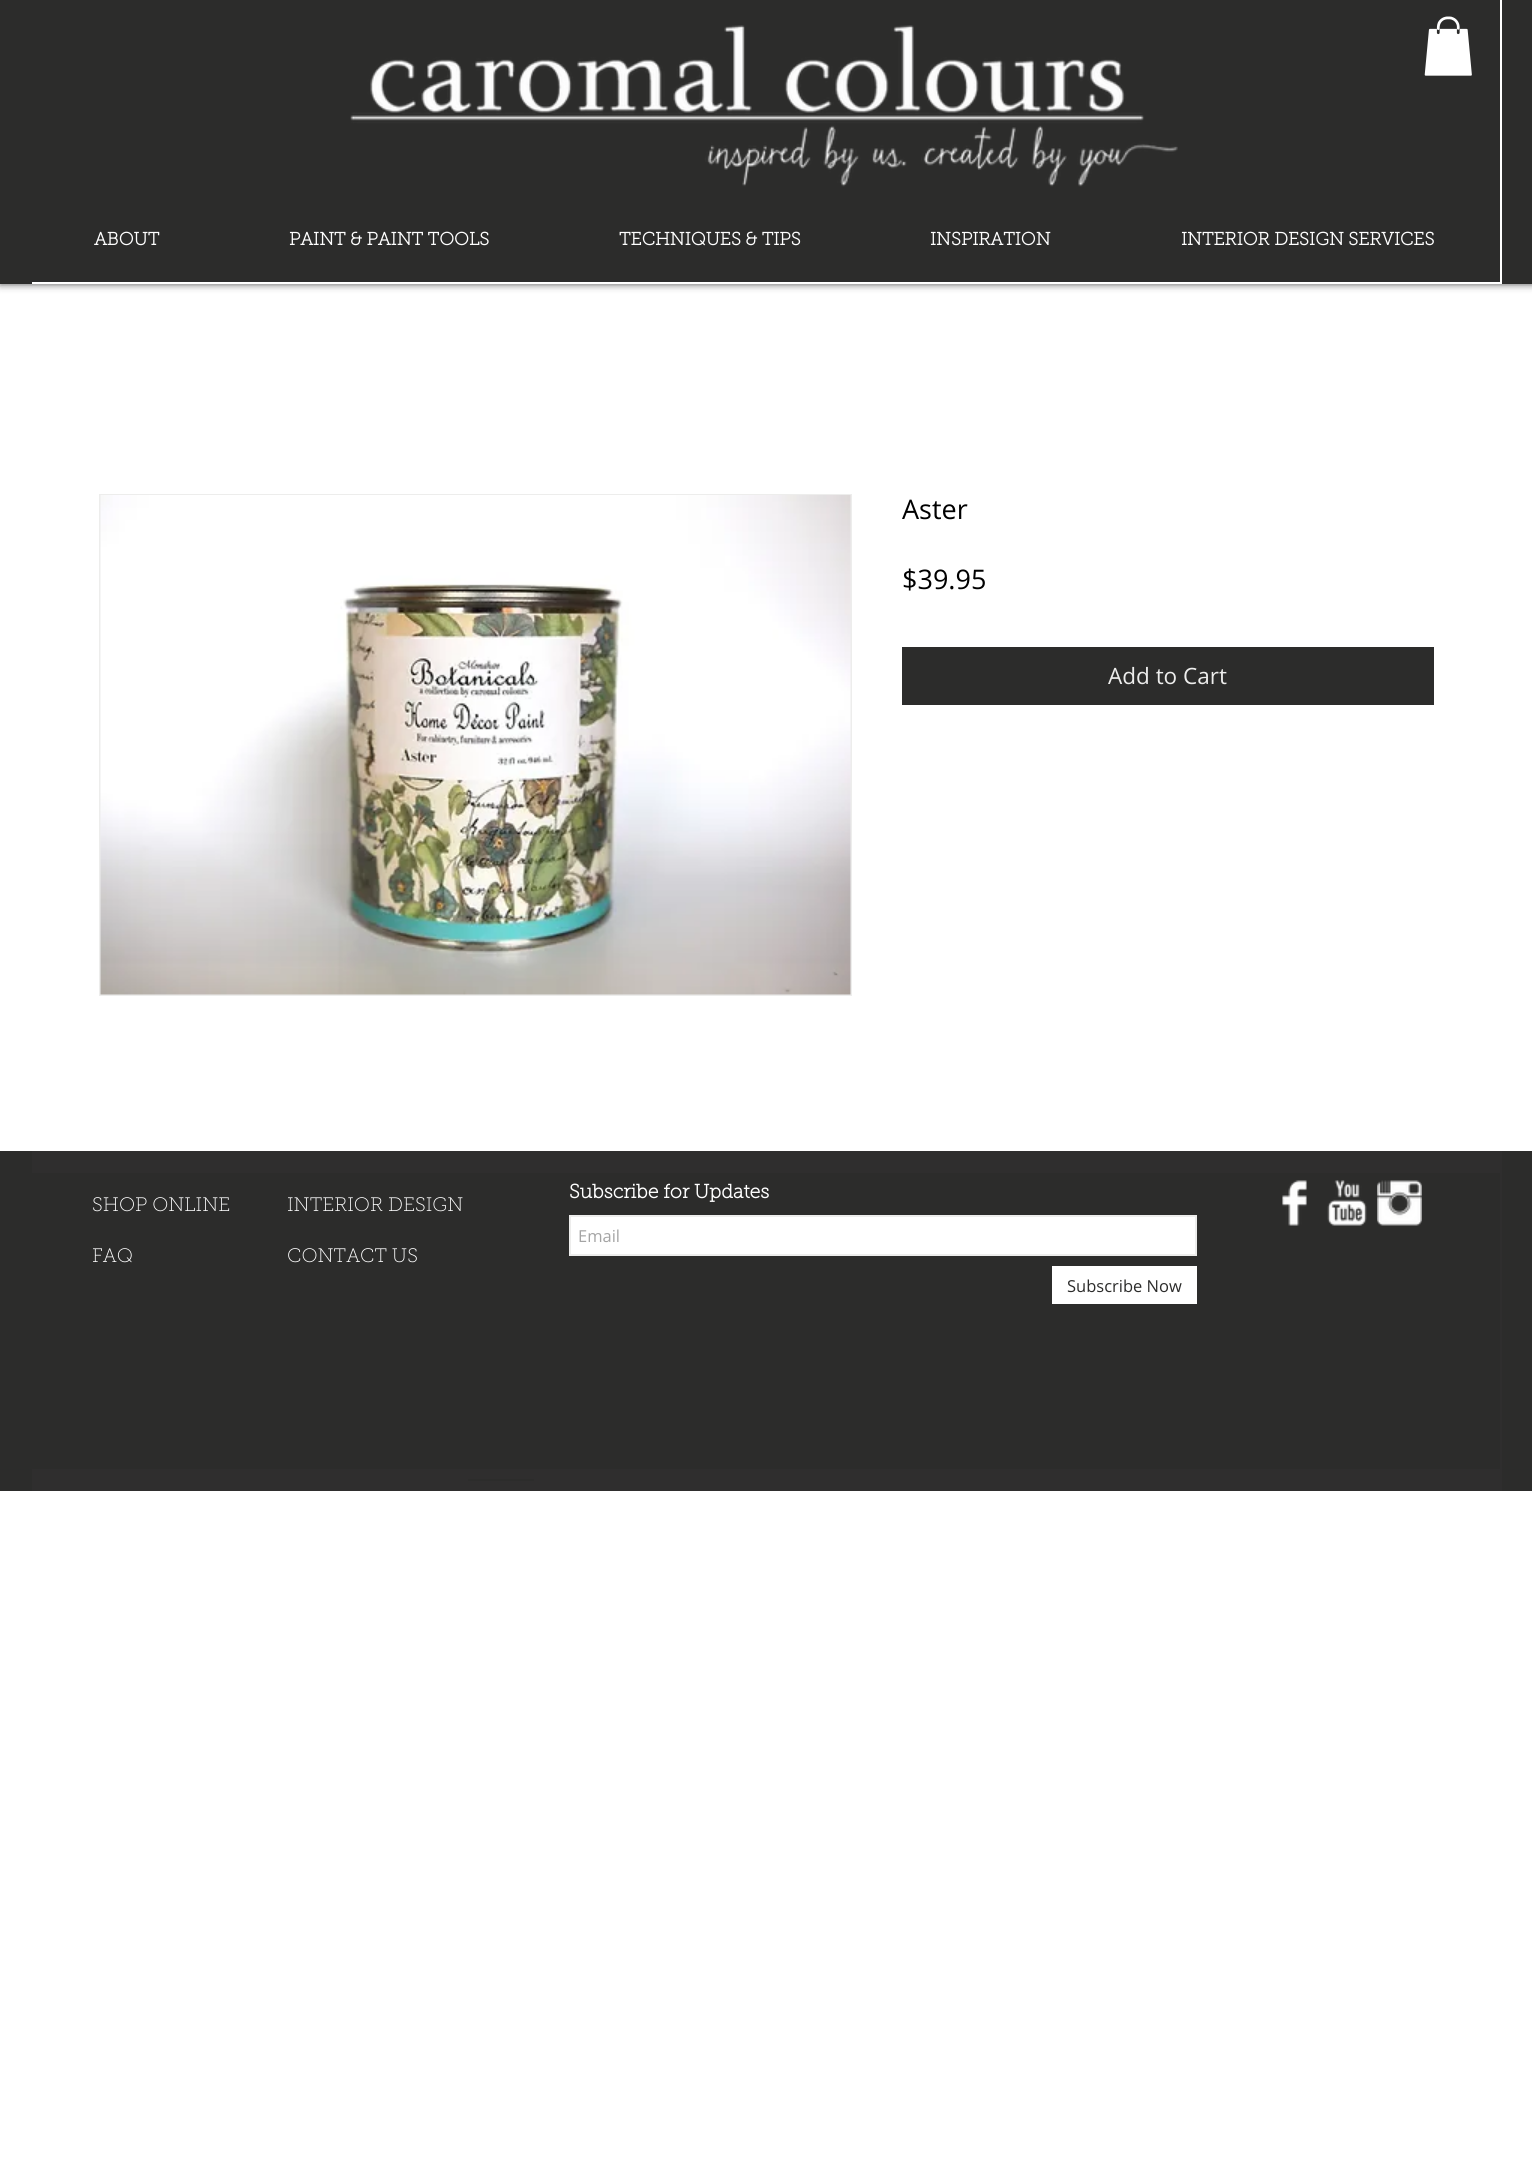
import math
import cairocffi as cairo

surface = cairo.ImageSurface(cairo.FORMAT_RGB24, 1532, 2168)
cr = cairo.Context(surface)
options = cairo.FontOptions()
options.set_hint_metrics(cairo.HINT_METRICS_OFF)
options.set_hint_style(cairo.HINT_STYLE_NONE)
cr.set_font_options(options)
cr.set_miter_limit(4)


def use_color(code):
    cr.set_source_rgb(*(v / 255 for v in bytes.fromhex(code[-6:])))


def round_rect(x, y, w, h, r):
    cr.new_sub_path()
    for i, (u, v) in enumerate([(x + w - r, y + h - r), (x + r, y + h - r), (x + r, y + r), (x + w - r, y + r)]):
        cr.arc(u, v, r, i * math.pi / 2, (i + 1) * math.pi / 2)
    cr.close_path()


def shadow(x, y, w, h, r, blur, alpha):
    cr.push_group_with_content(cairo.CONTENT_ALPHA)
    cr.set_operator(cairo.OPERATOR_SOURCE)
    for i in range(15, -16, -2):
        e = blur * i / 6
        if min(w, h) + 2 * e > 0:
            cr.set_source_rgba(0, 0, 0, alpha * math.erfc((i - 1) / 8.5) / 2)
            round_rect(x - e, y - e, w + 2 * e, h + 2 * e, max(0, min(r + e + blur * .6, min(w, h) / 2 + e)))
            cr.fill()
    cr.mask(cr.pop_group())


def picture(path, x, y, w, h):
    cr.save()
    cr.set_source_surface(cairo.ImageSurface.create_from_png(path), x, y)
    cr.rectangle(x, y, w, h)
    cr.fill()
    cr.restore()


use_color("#ffffff")
cr.paint()
use_color("#000000")
shadow(0, 0, 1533, 284, 0, 4, 0.7)
use_color("#2c2c2b")
cr.rectangle(0, 0, 1532, 284)
cr.fill()
use_color("#ffffff")
cr.rectangle(32, 0, 1470, 284)
cr.fill()
use_color("#2c2c2b")
cr.rectangle(32, 0, 1468, 282)
cr.fill()
picture("img1.png", 350, 25, 828, 162)
picture("img2.png", 1424, 16, 48, 60)
cr.select_font_face("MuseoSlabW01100", cairo.FONT_SLANT_NORMAL, cairo.FONT_WEIGHT_BOLD)
cr.set_font_size(18)
use_color("#ffffff")
cr.move_to(94, 245)
cr.show_text("ABOUT")
cr.move_to(289, 245)
cr.show_text("PAINT & PAINT TOOLS")
cr.move_to(619, 245)
cr.show_text("TECHNIQUES & TIPS")
cr.move_to(930, 245)
cr.show_text("INSPIRATION")
cr.move_to(1181, 245)
cr.show_text("INTERIOR DESIGN SERVICES")
cr.rectangle(100, 495, 751, 500)
use_color("#ededec")
cr.stroke()
picture("img3.png", 100, 495, 751, 500)
cr.select_font_face("Open Sans")
cr.set_font_size(27)
use_color("#000000")
cr.move_to(902, 519)
cr.show_text("Aster")
cr.move_to(902, 589)
cr.show_text("$39.95")
use_color("#2c2c2b")
cr.rectangle(902, 647, 532, 58)
cr.fill()
cr.set_font_size(22.5)
use_color("#ededec")
cr.move_to(1108, 684)
cr.show_text("Add to Cart")
use_color("#2c2c2b")
cr.rectangle(0, 1151, 1532, 340)
cr.fill()
use_color("#2f2e2e")
cr.rectangle(32, 1151, 1470, 340)
cr.fill()
use_color("#2c2c2b")
cr.rectangle(32, 1173, 1468, 296)
cr.fill()
cr.select_font_face("MuseoSlabW01100 Thin")
cr.set_font_size(19.5)
use_color("#ffffff")
cr.move_to(92, 1211)
cr.show_text("SHOP ONLINE")
cr.move_to(287, 1211)
cr.show_text("INTERIOR DESIGN")
cr.select_font_face("MuseoSlabW01100", cairo.FONT_SLANT_NORMAL, cairo.FONT_WEIGHT_BOLD)
cr.move_to(569, 1198)
cr.show_text("Subscribe for Updates")
cr.rectangle(570, 1216, 626, 39)
cr.fill_preserve()
use_color("#ededec")
cr.stroke()
cr.select_font_face("Open Sans")
cr.set_font_size(16.5)
use_color("#a4a4a4")
cr.move_to(578, 1242)
cr.show_text("Email")
use_color("#ffffff")
cr.rectangle(1052, 1266, 145, 38)
cr.fill()
use_color("#2c2c2b")
cr.move_to(1067, 1292)
cr.show_text("Subscribe Now")
picture("img4.png", 1282, 1180, 25, 46)
picture("img5.png", 1327, 1180, 40, 46)
picture("img6.png", 1377, 1180, 45, 46)
cr.select_font_face("MuseoSlabW01100 Thin")
cr.set_font_size(19.5)
use_color("#ffffff")
cr.move_to(92, 1262)
cr.show_text("FAQ")
cr.move_to(287, 1262)
cr.show_text("CONTACT US")
use_color("#2c2c2b")
cr.rectangle(468, 1479, 66, 2)
cr.fill()
surface.write_to_png("result.png")
